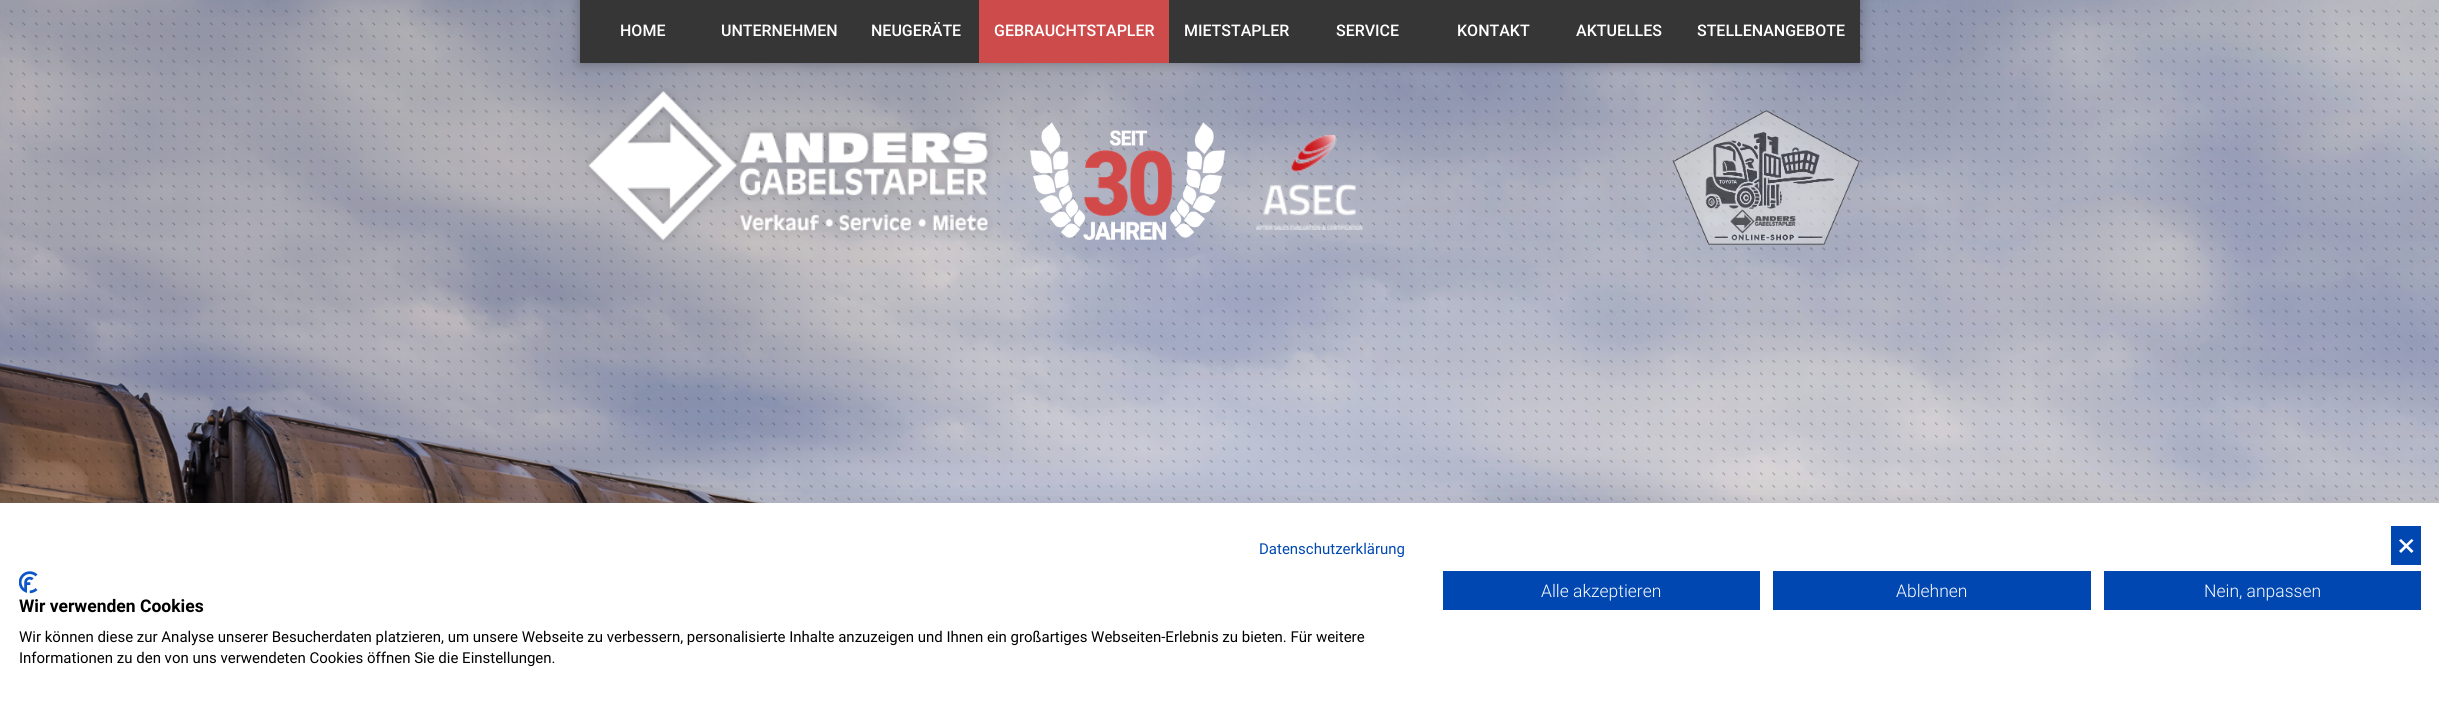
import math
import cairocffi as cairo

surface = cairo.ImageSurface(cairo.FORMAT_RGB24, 2439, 702)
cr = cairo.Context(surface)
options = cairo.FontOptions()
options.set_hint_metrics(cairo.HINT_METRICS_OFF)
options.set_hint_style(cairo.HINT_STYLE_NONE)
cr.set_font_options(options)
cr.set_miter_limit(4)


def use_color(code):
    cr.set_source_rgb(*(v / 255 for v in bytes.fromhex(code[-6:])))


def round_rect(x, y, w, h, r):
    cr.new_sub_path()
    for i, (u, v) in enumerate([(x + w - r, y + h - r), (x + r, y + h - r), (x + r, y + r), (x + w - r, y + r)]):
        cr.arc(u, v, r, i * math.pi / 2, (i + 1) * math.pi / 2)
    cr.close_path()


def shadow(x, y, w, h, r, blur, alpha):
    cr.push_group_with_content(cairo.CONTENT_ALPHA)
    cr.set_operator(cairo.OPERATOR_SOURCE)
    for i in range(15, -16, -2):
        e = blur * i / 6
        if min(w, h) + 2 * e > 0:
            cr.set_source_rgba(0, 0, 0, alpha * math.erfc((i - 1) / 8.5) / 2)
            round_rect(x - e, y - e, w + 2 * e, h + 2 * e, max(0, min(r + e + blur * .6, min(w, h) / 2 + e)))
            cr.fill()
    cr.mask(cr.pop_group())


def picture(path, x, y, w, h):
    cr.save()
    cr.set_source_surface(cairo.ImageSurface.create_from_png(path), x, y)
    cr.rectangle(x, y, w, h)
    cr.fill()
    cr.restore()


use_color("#ffffff")
cr.paint()
picture("img1.png", 0, 0, 2439, 503)
picture("img2.png", 0, 0, 2438, 501)
use_color("#000000")
shadow(580, 0, 1280, 63, 0, 6, 0.3)
use_color("#363636")
cr.rectangle(580, 0, 1280, 63)
cr.fill()
cr.select_font_face("Roboto Medium")
cr.set_font_size(16)
use_color("#ffffff")
cr.move_to(620, 36)
cr.show_text("HOME")
cr.move_to(721, 36)
cr.show_text("UNTERNEHMEN")
cr.move_to(871, 36)
cr.show_text("NEUGERÄTE")
use_color("#ce4b4c")
cr.rectangle(979, 0, 190, 63)
cr.fill()
use_color("#ffffff")
cr.move_to(994, 36)
cr.show_text("GEBRAUCHTSTAPLER")
cr.move_to(1184, 36)
cr.show_text("MIETSTAPLER")
cr.move_to(1336, 36)
cr.show_text("SERVICE")
cr.move_to(1457, 36)
cr.show_text("KONTAKT")
cr.move_to(1576, 36)
cr.show_text("AKTUELLES")
cr.move_to(1697, 36)
cr.show_text("STELLENANGEBOTE")
picture("img3.png", 586, 88, 407, 155)
picture("img4.png", 1030, 122, 195, 118)
picture("img5.png", 1256, 135, 107, 95)
picture("img6.png", 1672, 110, 188, 135)
use_color("#000000")
shadow(0, 503, 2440, 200, 0, 15, 0.1)
use_color("#ffffff")
cr.rectangle(0, 503, 2439, 199)
cr.fill()
cr.select_font_face("Roboto")
cr.set_font_size(15)
use_color("#0047b2")
cr.move_to(1259, 554)
cr.show_text("Datenschutzerklärung")
cr.rectangle(2391, 526, 30, 39)
cr.fill()
use_color("#ffffff")
cr.new_path()
cr.move_to(2411.5, 539)
cr.line_to(2413.5, 540.5)
cr.line_to(2401, 553)
cr.line_to(2399, 551)
cr.close_path()
cr.fill()
cr.new_path()
cr.move_to(2399, 540.5)
cr.line_to(2401, 539)
cr.line_to(2413.5, 551)
cr.line_to(2411.5, 553)
cr.close_path()
cr.fill()
use_color("#0047b2")
cr.rectangle(1443, 571, 317, 39)
cr.fill()
cr.select_font_face("Roboto Light")
cr.set_font_size(17.5)
use_color("#ffffff")
cr.move_to(1541, 597)
cr.show_text("Alle akzeptieren")
use_color("#0047b2")
cr.rectangle(1773, 571, 318, 39)
cr.fill()
use_color("#ffffff")
cr.move_to(1896, 597)
cr.show_text("Ablehnen")
use_color("#0047b2")
cr.rectangle(2104, 571, 317, 39)
cr.fill()
use_color("#ffffff")
cr.move_to(2204, 597)
cr.show_text("Nein, anpassen")
picture("img7.png", 19, 571, 19, 23)
cr.select_font_face("Roboto", cairo.FONT_SLANT_NORMAL, cairo.FONT_WEIGHT_BOLD)
use_color("#000000")
cr.move_to(19, 612)
cr.show_text("Wir verwenden Cookies")
cr.select_font_face("Roboto")
cr.set_font_size(15)
cr.move_to(19, 642)
cr.show_text("Wir können diese zur Analyse unserer Besucherdaten platzieren, um unsere Webseite zu verbessern, personalisierte Inhalte anzuzeigen und Ihnen ein großartiges Webseiten-Erlebnis zu bieten. Für weitere")
cr.move_to(19, 663)
cr.show_text("Informationen zu den von uns verwendeten Cookies öffnen Sie die Einstellungen.")
surface.write_to_png("result.png")
